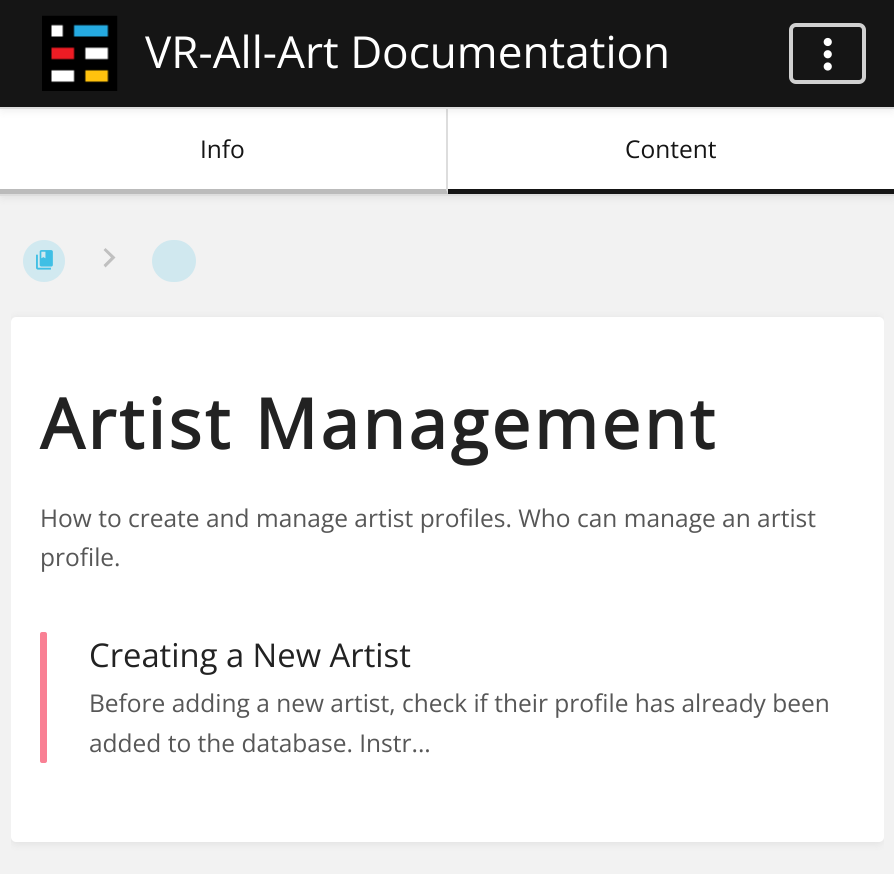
import math
import cairocffi as cairo

surface = cairo.ImageSurface(cairo.FORMAT_RGB24, 894, 874)
cr = cairo.Context(surface)
options = cairo.FontOptions()
options.set_hint_metrics(cairo.HINT_METRICS_OFF)
options.set_hint_style(cairo.HINT_STYLE_NONE)
cr.set_font_options(options)
cr.set_miter_limit(4)


def use_color(code):
    cr.set_source_rgb(*(v / 255 for v in bytes.fromhex(code[-6:])))


def spaced_text(x, y, s, letter, word):
    cr.move_to(x, y)
    for ch in s:
        cr.show_text(ch)
        cr.rel_move_to(letter + word * (ch == ' '), 0)


def round_rect(x, y, w, h, r):
    cr.new_sub_path()
    for i, (u, v) in enumerate([(x + w - r, y + h - r), (x + r, y + h - r), (x + r, y + r), (x + w - r, y + r)]):
        cr.arc(u, v, r, i * math.pi / 2, (i + 1) * math.pi / 2)
    cr.close_path()


def shadow(x, y, w, h, r, blur, alpha):
    cr.push_group_with_content(cairo.CONTENT_ALPHA)
    cr.set_operator(cairo.OPERATOR_SOURCE)
    for i in range(15, -16, -2):
        e = blur * i / 6
        if min(w, h) + 2 * e > 0:
            cr.set_source_rgba(0, 0, 0, alpha * math.erfc((i - 1) / 8.5) / 2)
            round_rect(x - e, y - e, w + 2 * e, h + 2 * e, max(0, min(r + e + blur * .6, min(w, h) / 2 + e)))
            cr.fill()
    cr.mask(cr.pop_group())


def picture(path, x, y, w, h):
    cr.save()
    cr.set_source_surface(cairo.ImageSurface.create_from_png(path), x, y)
    cr.rectangle(x, y, w, h)
    cr.fill()
    cr.restore()


use_color("#f2f2f2")
cr.paint()
use_color("#000000")
shadow(2, 112, 891, 84, 0, 5, 0.1)
use_color("#ffffff")
cr.rectangle(0, 109, 894, 85)
cr.fill()
use_color("#dddddd")
cr.new_path()
cr.move_to(448, 108)
cr.line_to(448, 194)
cr.line_to(446, 189)
cr.line_to(446, 108)
cr.close_path()
cr.fill()
use_color("#000000")
shadow(2, 4, 891, 105, 0, 5, 0.1)
use_color("#151515")
cr.rectangle(0, 0, 894, 107)
cr.fill()
use_color("#dddddd")
cr.rectangle(0, 107, 894, 2)
cr.fill()
picture("img1.png", 42, 15, 76, 76)
cr.select_font_face("Open Sans")
cr.set_font_size(44.1)
use_color("#ffffff")
cr.move_to(145, 68)
cr.show_text("VR-All-Art Documentation")
round_rect(791, 25, 73, 57, 5)
use_color("#d0d0d0")
cr.set_line_width(4)
cr.stroke()
picture("img2.png", 823, 37, 9, 34)
use_color("#dddddd")
cr.rectangle(0, 194, 894, 2)
cr.fill()
use_color("#bbbbbb")
cr.new_path()
cr.move_to(448, 194)
cr.line_to(0, 194)
cr.line_to(0, 189)
cr.line_to(446, 189)
cr.close_path()
cr.fill()
cr.set_font_size(24.5)
use_color("#151515")
cr.move_to(200, 158)
cr.show_text("Info")
cr.rectangle(448, 189, 446, 5)
cr.fill()
cr.move_to(625, 158)
cr.show_text("Content")
picture("img3.png", 36, 250, 17, 20)
cr.set_source_rgba(0, 0.675, 0.875, 0.14)
cr.arc(44, 261, 21, 0, 2 * math.pi)
cr.fill()
use_color("#c0c0c0")
cr.new_path()
cr.move_to(105.5, 248)
cr.line_to(103.5, 250)
cr.line_to(111, 257.5)
cr.line_to(103.5, 265)
cr.line_to(105.5, 267.5)
cr.line_to(115.5, 257.5)
cr.close_path()
cr.fill()
use_color("#d0e8ef")
round_rect(152, 240, 44, 42, 21)
cr.fill()
cr.save()
cr.rectangle(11, 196, 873, 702)
cr.clip()
use_color("#000000")
shadow(12, 320, 870, 522, 4, 5, 0.1)
cr.restore()
use_color("#ffffff")
round_rect(11, 317, 873, 525, 5)
cr.fill()
cr.select_font_face("Open Sans", cairo.FONT_SLANT_NORMAL, cairo.FONT_WEIGHT_BOLD)
cr.set_font_size(69.25)
use_color("#222222")
spaced_text(40, 449, "Artist Management", 3.5, 0)
cr.select_font_face("Open Sans")
cr.set_font_size(24.5)
use_color("#575757")
cr.move_to(40, 527)
cr.show_text("How to create and manage artist profiles. Who can manage an artist")
cr.move_to(40, 566)
cr.show_text("profile.")
use_color("#f98094")
round_rect(40, 632, 7, 131, 2)
cr.fill()
cr.set_font_size(32.75)
use_color("#222222")
cr.move_to(89, 667)
cr.show_text("Creating a New Artist")
cr.set_font_size(24.5)
use_color("#575757")
cr.move_to(89, 712)
cr.show_text("Before adding a new artist, check if their profile has already been")
cr.move_to(89, 752)
cr.show_text("added to the database. Instr...")
surface.write_to_png("result.png")
